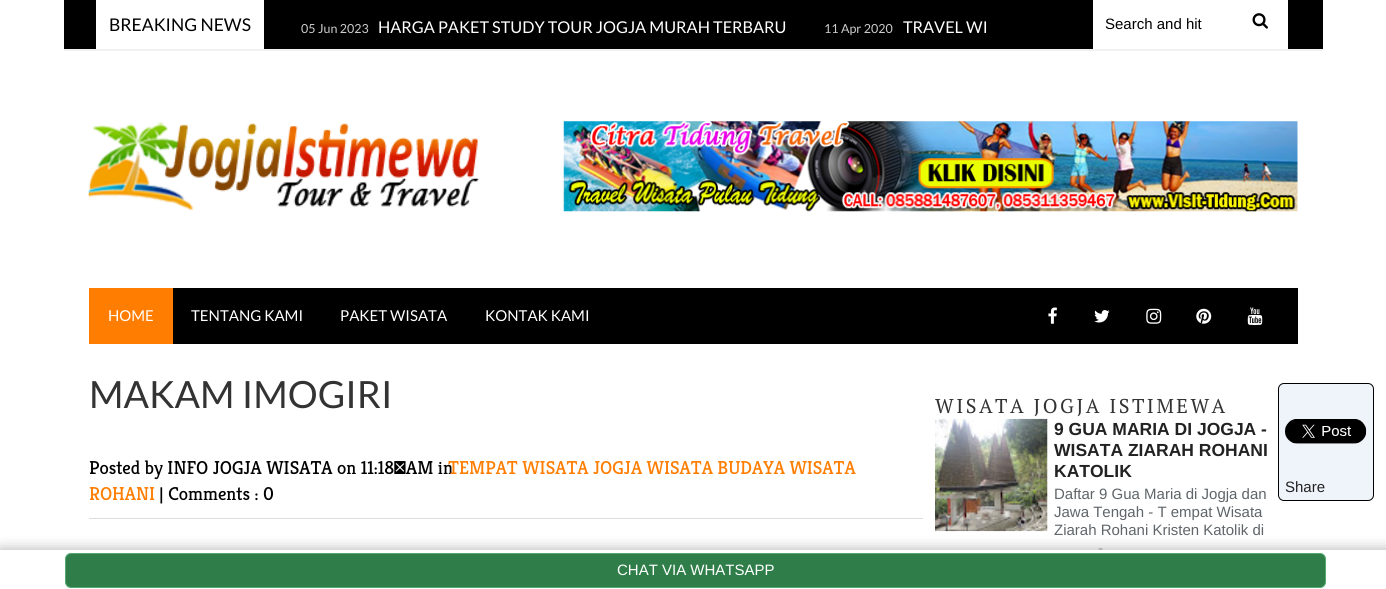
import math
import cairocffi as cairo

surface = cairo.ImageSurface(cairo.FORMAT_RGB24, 1386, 589)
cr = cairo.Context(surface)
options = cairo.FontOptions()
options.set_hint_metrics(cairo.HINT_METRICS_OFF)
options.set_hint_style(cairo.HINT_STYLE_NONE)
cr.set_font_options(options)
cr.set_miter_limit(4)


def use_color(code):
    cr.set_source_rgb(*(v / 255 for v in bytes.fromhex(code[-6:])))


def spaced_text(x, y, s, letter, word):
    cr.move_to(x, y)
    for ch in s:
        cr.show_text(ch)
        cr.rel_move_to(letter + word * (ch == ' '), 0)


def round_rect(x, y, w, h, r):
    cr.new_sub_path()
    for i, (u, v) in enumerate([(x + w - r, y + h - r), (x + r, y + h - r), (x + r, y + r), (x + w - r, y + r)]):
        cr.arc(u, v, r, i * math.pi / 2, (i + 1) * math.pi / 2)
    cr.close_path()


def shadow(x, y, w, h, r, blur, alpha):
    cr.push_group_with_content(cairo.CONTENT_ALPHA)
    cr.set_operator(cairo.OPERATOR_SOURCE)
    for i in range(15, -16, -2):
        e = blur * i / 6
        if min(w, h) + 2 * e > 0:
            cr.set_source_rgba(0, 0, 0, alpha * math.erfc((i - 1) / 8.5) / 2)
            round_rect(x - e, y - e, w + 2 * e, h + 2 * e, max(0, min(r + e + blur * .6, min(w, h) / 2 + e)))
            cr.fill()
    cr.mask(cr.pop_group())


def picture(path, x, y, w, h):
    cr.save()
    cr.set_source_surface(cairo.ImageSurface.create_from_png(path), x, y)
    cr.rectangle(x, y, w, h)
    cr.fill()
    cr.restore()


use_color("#ffffff")
cr.paint()
use_color("#000000")
cr.rectangle(64, 0, 1259, 49)
cr.fill()
use_color("#f1f1f1")
cr.rectangle(64, 49, 1259, 2)
cr.fill()
use_color("#ffffff")
cr.rectangle(96, 0, 168, 49)
cr.fill()
cr.select_font_face("Lato")
cr.set_font_size(17.5)
use_color("#000000")
cr.move_to(109, 31)
cr.show_text("BREAKING NEWS")
cr.set_font_size(12.5)
use_color("#cccccc")
cr.move_to(301, 33)
cr.show_text("05 Jun 2023")
cr.set_font_size(16.25)
use_color("#ffffff")
cr.move_to(378, 33)
cr.show_text("HARGA PAKET STUDY TOUR JOGJA MURAH TERBARU")
cr.set_font_size(12.5)
use_color("#cccccc")
cr.move_to(824, 33)
cr.show_text("11 Apr 2020")
cr.set_font_size(16.25)
use_color("#ffffff")
cr.move_to(903, 33)
cr.show_text("TRAVEL WI")
cr.rectangle(1093, 0, 195, 49)
cr.fill()
cr.select_font_face("Liberation Sans")
cr.set_font_size(15)
use_color("#000000")
cr.move_to(1105, 29)
cr.show_text("Search and hit")
picture("img1.png", 1252, 13, 16, 16)
picture("img2.png", 88, 122, 391, 89)
picture("img3.png", 563, 121, 735, 91)
cr.rectangle(173, 288, 1125, 56)
cr.fill()
use_color("#ff7d00")
cr.rectangle(89, 288, 84, 56)
cr.fill()
cr.select_font_face("Lato")
use_color("#ffffff")
cr.move_to(108, 321)
cr.show_text("HOME")
cr.move_to(191, 321)
cr.show_text("TENTANG KAMI")
cr.move_to(340, 321)
cr.show_text("PAKET WISATA")
cr.move_to(485, 321)
cr.show_text("KONTAK KAMI")
picture("img4.png", 1048, 307, 9, 17)
picture("img5.png", 1094, 310, 16, 13)
picture("img6.png", 1146, 308, 16, 16)
picture("img7.png", 1196, 308, 16, 16)
picture("img8.png", 1247, 307, 16, 18)
cr.set_font_size(37.5)
use_color("#333333")
cr.move_to(89, 408)
cr.show_text("MAKAM IMOGIRI")
use_color("#dddddd")
cr.rectangle(89, 518, 834, 1)
cr.fill()
cr.select_font_face("Kreon")
cr.set_font_size(18.75)
use_color("#000000")
cr.move_to(89, 474)
cr.show_text("Posted by INFO JOGJA WISATA on 11:18 AM in")
use_color("#ff7d00")
cr.move_to(448, 474)
cr.show_text("TEMPAT WISATA JOGJA WISATA BUDAYA WISATA")
cr.move_to(89, 500)
cr.show_text("ROHANI")
use_color("#000000")
cr.move_to(159, 500)
cr.show_text("| Comments : 0")
cr.select_font_face("PT Serif")
cr.set_font_size(20)
use_color("#333333")
spaced_text(935, 413, "WISATA JOGJA ISTIMEWA", 2.5, 0)
picture("img9.png", 935, 418, 113, 114)
cr.select_font_face("Liberation Sans", cairo.FONT_SLANT_NORMAL, cairo.FONT_WEIGHT_BOLD)
cr.set_font_size(17.5)
use_color("#222222")
cr.move_to(1054, 435)
cr.show_text("9 GUA MARIA DI JOGJA -")
cr.move_to(1054, 456)
cr.show_text("WISATA ZIARAH ROHANI")
cr.move_to(1054, 477)
cr.show_text("KATOLIK")
cr.select_font_face("Liberation Sans")
cr.set_font_size(15)
use_color("#5f6569")
cr.move_to(1054, 499)
cr.show_text("Daftar 9 Gua Maria di Jogja dan")
cr.move_to(1054, 517)
cr.show_text("Jawa Tengah - T empat Wisata")
cr.move_to(1054, 535)
cr.show_text("Ziarah Rohani Kristen Katolik di")
cr.move_to(1098, 553)
cr.show_text("-")
use_color("#eff3fa")
round_rect(1278.5, 383.5, 95, 117, 5.5)
cr.fill_preserve()
use_color("#000000")
cr.set_line_width(1)
cr.stroke()
picture("img10.png", 1285, 419, 82, 25)
use_color("#222222")
cr.move_to(1285, 492)
cr.show_text("Share")
use_color("#c0c0c0")
shadow(0, 548, 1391, 40, 0, 6, 1)
use_color("#ffffff")
cr.rectangle(0, 550, 1386, 39)
cr.fill()
use_color("#2f7e49")
round_rect(65.5, 553.5, 1260, 34, 5.5)
cr.fill_preserve()
use_color("#56aa71")
cr.stroke()
use_color("#ffffff")
cr.move_to(617, 575)
cr.show_text("CHAT VIA WHATSAPP")
surface.write_to_png("result.png")
